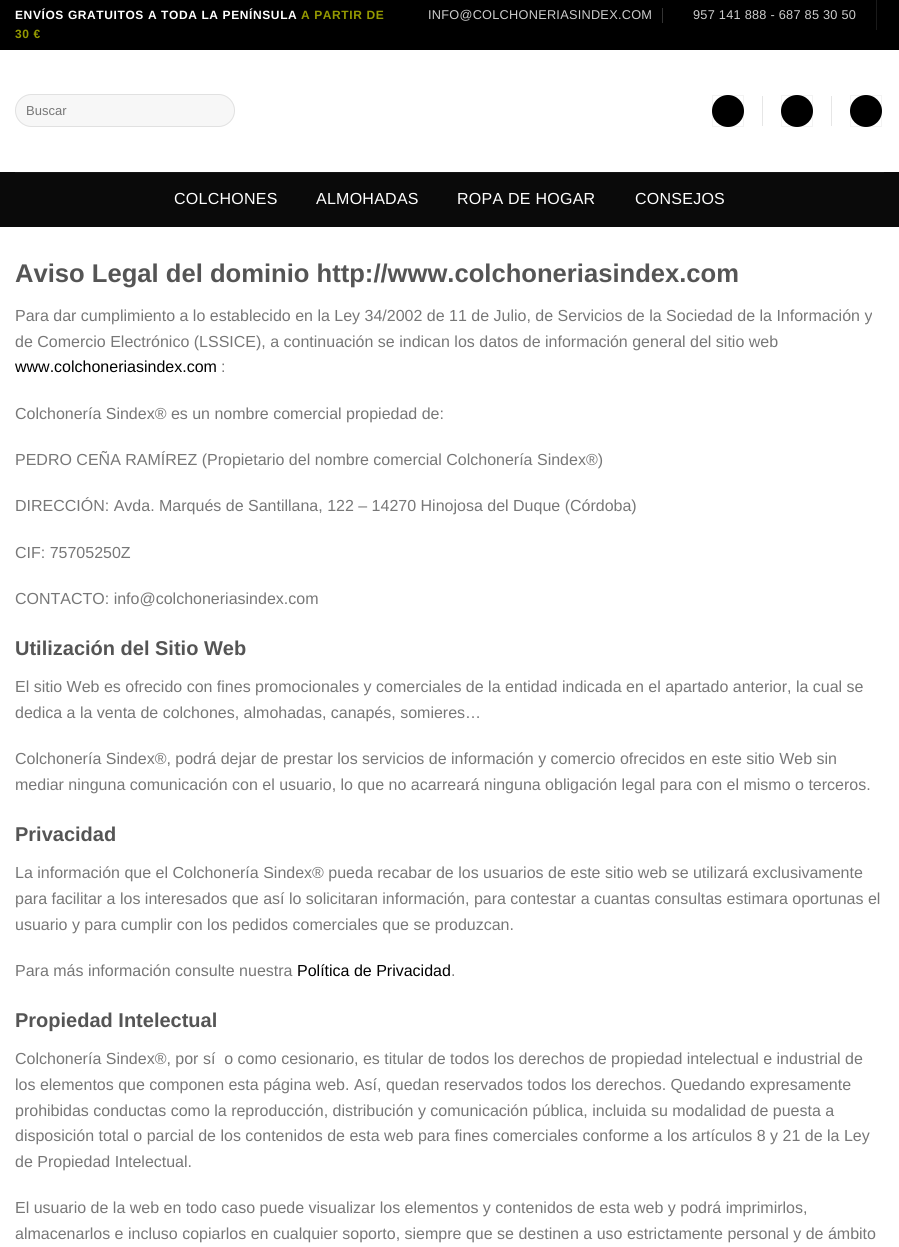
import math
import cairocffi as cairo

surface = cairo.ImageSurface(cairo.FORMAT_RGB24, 899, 1247)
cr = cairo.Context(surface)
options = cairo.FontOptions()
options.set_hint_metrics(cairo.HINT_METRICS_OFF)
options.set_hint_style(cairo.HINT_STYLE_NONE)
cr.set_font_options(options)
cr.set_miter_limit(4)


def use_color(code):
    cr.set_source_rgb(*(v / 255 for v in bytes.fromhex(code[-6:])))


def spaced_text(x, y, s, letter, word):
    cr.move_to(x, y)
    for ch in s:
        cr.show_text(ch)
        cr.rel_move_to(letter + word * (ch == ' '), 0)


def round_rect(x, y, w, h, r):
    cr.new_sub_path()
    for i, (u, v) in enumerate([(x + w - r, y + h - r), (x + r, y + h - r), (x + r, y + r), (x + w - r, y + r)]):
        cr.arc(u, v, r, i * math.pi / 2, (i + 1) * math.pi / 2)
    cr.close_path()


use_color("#ffffff")
cr.paint()
use_color("#000000")
cr.rectangle(0, 0, 899, 50)
cr.fill()
cr.select_font_face("Liberation Sans", cairo.FONT_SLANT_NORMAL, cairo.FONT_WEIGHT_BOLD)
cr.set_font_size(12)
use_color("#ffffff")
spaced_text(15, 19, "ENVÍOS GRATUITOS A TODA LA PENÍNSULA", 0.6, 0)
use_color("#949900")
spaced_text(301, 19, "A PARTIR DE", 0.6, 0)
spaced_text(15, 38, "30 €", 0.6, 0)
cr.select_font_face("Liberation Sans")
cr.set_font_size(12.75)
use_color("#cccccc")
spaced_text(428, 19, "INFO@COLCHONERIASINDEX.COM", 0.25, 0)
use_color("#333333")
cr.rectangle(662, 8, 1, 15)
cr.fill()
use_color("#cccccc")
spaced_text(693, 19, "957 141 888 - 687 85 30 50", 0.25, 0)
use_color("#1a1a1a")
cr.rectangle(876, 0, 1, 30)
cr.fill()
use_color("#f7f7f7")
round_rect(15, 94, 220, 33, 16.5)
cr.fill()
round_rect(15.5, 94.5, 219, 32, 16)
cr.set_source_rgba(0, 0, 0, 0.09)
cr.set_line_width(1)
cr.stroke()
cr.set_font_size(13)
use_color("#777777")
cr.move_to(26, 115)
cr.show_text("Buscar")
use_color("#000000")
cr.new_path()
cr.arc(728, 111, 16, 0, 2 * math.pi)
cr.fill()
cr.rectangle(712.5, 95.5, 31, 31)
cr.set_source_rgba(0, 0, 0, 0.05)
cr.stroke()
use_color("#e6e6e6")
cr.rectangle(762, 96, 1, 30)
cr.fill()
use_color("#000000")
cr.arc(797, 111, 16, 0, 2 * math.pi)
cr.fill()
cr.rectangle(781.5, 95.5, 31, 31)
cr.set_source_rgba(0, 0, 0, 0.05)
cr.stroke()
use_color("#e6e6e6")
cr.rectangle(831, 96, 1, 30)
cr.fill()
use_color("#000000")
cr.arc(866, 111, 16, 0, 2 * math.pi)
cr.fill()
cr.rectangle(850.5, 95.5, 31, 31)
cr.set_source_rgba(0, 0, 0, 0.05)
cr.stroke()
use_color("#0a0a0a")
cr.rectangle(0, 172, 899, 55)
cr.fill()
use_color("#151515")
cr.rectangle(15, 172, 869, 1)
cr.fill()
cr.set_font_size(16)
use_color("#ffffff")
spaced_text(174, 204, "COLCHONES", 0.25, 0)
spaced_text(316, 204, "ALMOHADAS", 0.25, 0)
spaced_text(457, 204, "ROPA DE HOGAR", 0.25, 0)
spaced_text(635, 204, "CONSEJOS", 0.25, 0)
cr.select_font_face("Liberation Sans", cairo.FONT_SLANT_NORMAL, cairo.FONT_WEIGHT_BOLD)
cr.set_font_size(25.6)
use_color("#555555")
cr.move_to(15, 282)
cr.show_text("Aviso Legal del dominio http://www.colchoneriasindex.com")
cr.select_font_face("Liberation Sans")
cr.set_font_size(16)
use_color("#777777")
cr.move_to(15, 321)
cr.show_text("Para dar cumplimiento a lo establecido en la Ley 34/2002 de 11 de Julio, de Servicios de la Sociedad de la Información y")
cr.move_to(15, 347)
cr.show_text("de Comercio Electrónico (LSSICE), a continuación se indican los datos de información general del sitio web")
use_color("#000000")
cr.move_to(15, 372)
cr.show_text("www.colchoneriasindex.com")
use_color("#777777")
cr.move_to(221, 372)
cr.show_text(":")
cr.move_to(15, 419)
cr.show_text("Colchonería Sindex® es un nombre comercial propiedad de:")
cr.move_to(15, 465)
cr.show_text("PEDRO CEÑA RAMÍREZ (Propietario del nombre comercial Colchonería Sindex®)")
cr.move_to(15, 511)
cr.show_text("DIRECCIÓN: Avda. Marqués de Santillana, 122 – 14270 Hinojosa del Duque (Córdoba)")
cr.move_to(15, 558)
cr.show_text("CIF: 75705250Z")
cr.move_to(15, 604)
cr.show_text("CONTACTO: info@colchoneriasindex.com")
cr.select_font_face("Liberation Sans", cairo.FONT_SLANT_NORMAL, cairo.FONT_WEIGHT_BOLD)
cr.set_font_size(20)
use_color("#555555")
cr.move_to(15, 655)
cr.show_text("Utilización del Sitio Web")
cr.select_font_face("Liberation Sans")
cr.set_font_size(16)
use_color("#777777")
cr.move_to(15, 692)
cr.show_text("El sitio Web es ofrecido con fines promocionales y comerciales de la entidad indicada en el apartado anterior, la cual se")
cr.move_to(15, 718)
cr.show_text("dedica a la venta de colchones, almohadas, canapés, somieres…")
cr.move_to(15, 764)
cr.show_text("Colchonería Sindex®, podrá dejar de prestar los servicios de información y comercio ofrecidos en este sitio Web sin")
cr.move_to(15, 790)
cr.show_text("mediar ninguna comunicación con el usuario, lo que no acarreará ninguna obligación legal para con el mismo o terceros.")
cr.select_font_face("Liberation Sans", cairo.FONT_SLANT_NORMAL, cairo.FONT_WEIGHT_BOLD)
cr.set_font_size(20)
use_color("#555555")
cr.move_to(15, 841)
cr.show_text("Privacidad")
cr.select_font_face("Liberation Sans")
cr.set_font_size(16)
use_color("#777777")
cr.move_to(15, 878)
cr.show_text("La información que el Colchonería Sindex® pueda recabar de los usuarios de este sitio web se utilizará exclusivamente")
cr.move_to(15, 904)
cr.show_text("para facilitar a los interesados que así lo solicitaran información, para contestar a cuantas consultas estimara oportunas el")
cr.move_to(15, 930)
cr.show_text("usuario y para cumplir con los pedidos comerciales que se produzcan.")
cr.move_to(15, 976)
cr.show_text("Para más información consulte nuestra")
use_color("#000000")
cr.move_to(297, 976)
cr.show_text("Política de Privacidad")
use_color("#777777")
cr.move_to(451, 976)
cr.show_text(".")
cr.select_font_face("Liberation Sans", cairo.FONT_SLANT_NORMAL, cairo.FONT_WEIGHT_BOLD)
cr.set_font_size(20)
use_color("#555555")
cr.move_to(15, 1027)
cr.show_text("Propiedad Intelectual")
cr.select_font_face("Liberation Sans")
cr.set_font_size(16)
use_color("#777777")
cr.move_to(15, 1064)
cr.show_text("Colchonería Sindex®, por sí  o como cesionario, es titular de todos los derechos de propiedad intelectual e industrial de")
cr.move_to(15, 1090)
cr.show_text("los elementos que componen esta página web. Así, quedan reservados todos los derechos. Quedando expresamente")
cr.move_to(15, 1116)
cr.show_text("prohibidas conductas como la reproducción, distribución y comunicación pública, incluida su modalidad de puesta a")
cr.move_to(15, 1141)
cr.show_text("disposición total o parcial de los contenidos de esta web para fines comerciales conforme a los artículos 8 y 21 de la Ley")
cr.move_to(15, 1167)
cr.show_text("de Propiedad Intelectual.")
cr.move_to(15, 1213)
cr.show_text("El usuario de la web en todo caso puede visualizar los elementos y contenidos de esta web y podrá imprimirlos,")
cr.move_to(15, 1239)
cr.show_text("almacenarlos e incluso copiarlos en cualquier soporto, siempre que se destinen a uso estrictamente personal y de ámbito")
surface.write_to_png("result.png")
